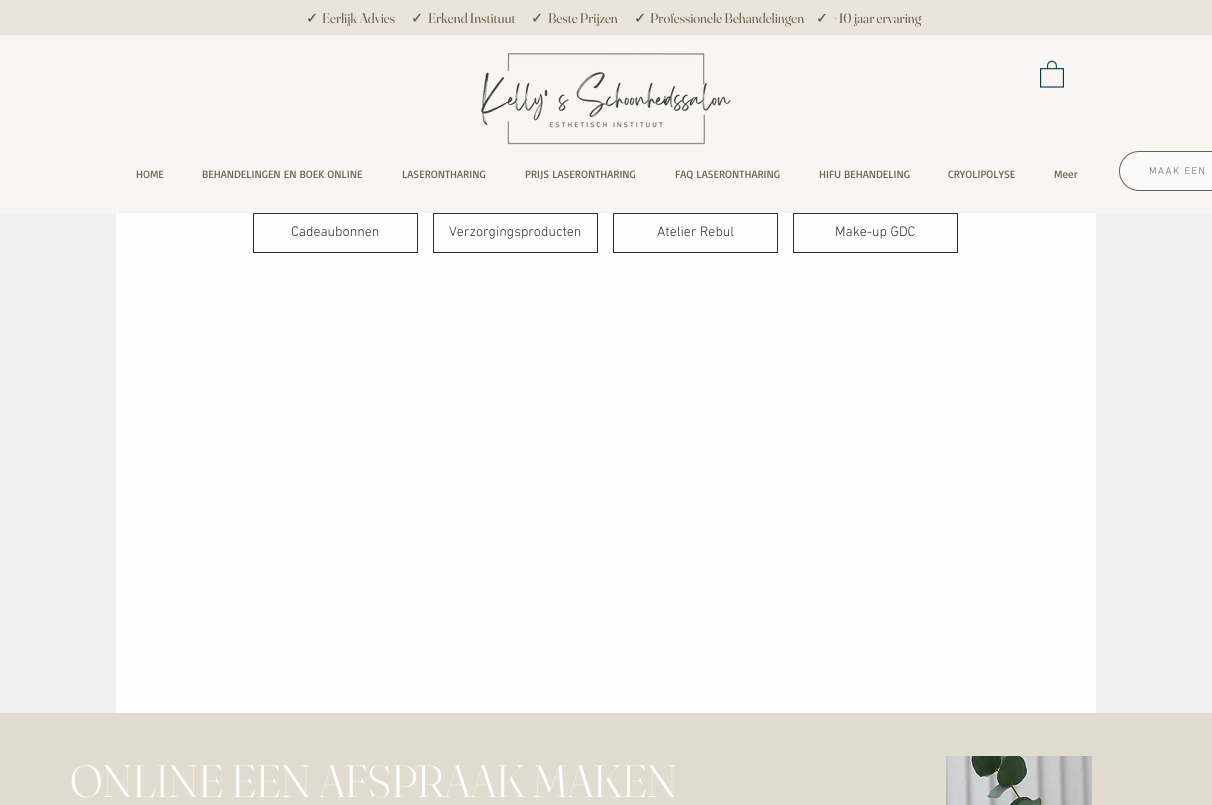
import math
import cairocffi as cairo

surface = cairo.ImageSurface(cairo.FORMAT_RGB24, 1212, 805)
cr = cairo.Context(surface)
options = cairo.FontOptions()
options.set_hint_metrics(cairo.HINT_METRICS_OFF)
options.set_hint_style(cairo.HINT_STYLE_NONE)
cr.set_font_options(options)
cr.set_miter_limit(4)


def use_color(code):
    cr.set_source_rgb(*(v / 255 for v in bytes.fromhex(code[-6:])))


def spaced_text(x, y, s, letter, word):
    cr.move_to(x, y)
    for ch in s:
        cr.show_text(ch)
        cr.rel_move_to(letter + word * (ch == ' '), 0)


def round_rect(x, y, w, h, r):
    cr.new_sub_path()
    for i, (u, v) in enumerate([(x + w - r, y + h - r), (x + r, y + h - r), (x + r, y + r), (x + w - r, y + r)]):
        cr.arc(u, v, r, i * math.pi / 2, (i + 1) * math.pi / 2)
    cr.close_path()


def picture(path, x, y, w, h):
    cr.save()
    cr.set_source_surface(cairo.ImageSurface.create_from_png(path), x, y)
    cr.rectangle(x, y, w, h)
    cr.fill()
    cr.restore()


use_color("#f0f0f0")
cr.paint()
use_color("#eae5dc")
cr.rectangle(0, 0, 1212, 35)
cr.fill()
cr.select_font_face("DejaVu Sans", cairo.FONT_SLANT_NORMAL, cairo.FONT_WEIGHT_BOLD)
cr.set_font_size(14)
use_color("#70604d")
cr.move_to(306, 23)
cr.show_text("✓")
cr.select_font_face("Fraunces")
cr.move_to(322, 23)
cr.show_text("Eerlijk Advies")
cr.select_font_face("DejaVu Sans", cairo.FONT_SLANT_NORMAL, cairo.FONT_WEIGHT_BOLD)
cr.move_to(411, 23)
cr.show_text("✓")
cr.select_font_face("Fraunces")
cr.move_to(428, 23)
cr.show_text("Erkend Instituut")
cr.select_font_face("DejaVu Sans", cairo.FONT_SLANT_NORMAL, cairo.FONT_WEIGHT_BOLD)
cr.move_to(531, 23)
cr.show_text("✓")
cr.select_font_face("Fraunces")
cr.move_to(548, 23)
cr.show_text("Beste Prijzen")
cr.select_font_face("DejaVu Sans", cairo.FONT_SLANT_NORMAL, cairo.FONT_WEIGHT_BOLD)
cr.move_to(634, 23)
cr.show_text("✓")
cr.select_font_face("Fraunces")
cr.move_to(650, 23)
cr.show_text("Professionele Behandelingen")
cr.select_font_face("DejaVu Sans", cairo.FONT_SLANT_NORMAL, cairo.FONT_WEIGHT_BOLD)
cr.move_to(816, 23)
cr.show_text("✓")
cr.select_font_face("Fraunces")
cr.move_to(832, 23)
cr.show_text("+10 jaar ervaring")
use_color("#f7f6f2")
cr.rectangle(0, 35, 1212, 178)
cr.fill()
picture("img1.png", 481, 53, 250, 92)
picture("img2.png", 1040, 60, 24, 28)
cr.select_font_face("Basic")
cr.set_font_size(11)
use_color("#70604d")
cr.move_to(136, 178)
cr.show_text("HOME")
cr.move_to(202, 178)
cr.show_text("BEHANDELINGEN EN BOEK ONLINE")
cr.move_to(402, 178)
cr.show_text("LASERONTHARING")
cr.move_to(525, 178)
cr.show_text("PRIJS LASERONTHARING")
cr.move_to(675, 178)
cr.show_text("FAQ LASERONTHARING")
cr.move_to(819, 178)
cr.show_text("HIFU BEHANDELING")
cr.move_to(948, 178)
cr.show_text("CRYOLIPOLYSE")
cr.move_to(1054, 178)
cr.show_text("Meer")
use_color("#fafafa")
round_rect(1119.5, 151.5, 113, 39, 19.5)
cr.fill_preserve()
use_color("#6e5f4f")
cr.set_line_width(1)
cr.stroke()
cr.select_font_face("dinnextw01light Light")
cr.set_font_size(10)
use_color("#70604d")
spaced_text(1149, 174, "MAAK EEN", 1.5, 0)
use_color("#fdfdfd")
cr.rectangle(116, 213, 980, 500)
cr.fill()
cr.rectangle(253.5, 213.5, 164, 39)
use_color("#2f2e2e")
cr.stroke()
cr.set_font_size(14)
cr.move_to(291, 236)
cr.show_text("Cadeaubonnen")
cr.rectangle(433.5, 213.5, 164, 39)
cr.stroke()
cr.move_to(449, 236)
cr.show_text("Verzorgingsproducten")
cr.rectangle(613.5, 213.5, 164, 39)
cr.stroke()
cr.move_to(657, 236)
cr.show_text("Atelier Rebul")
cr.rectangle(793.5, 213.5, 164, 39)
cr.stroke()
cr.move_to(835, 236)
cr.show_text("Make-up GDC")
use_color("#e2dcd0")
cr.rectangle(0, 713, 1212, 92)
cr.fill()
cr.select_font_face("Fraunces Light")
cr.set_font_size(45)
use_color("#ffffff")
cr.move_to(70, 797)
cr.show_text("ONLINE EEN AFSPRAAK MAKEN")
picture("img3.png", 946, 756, 146, 49)
surface.write_to_png("result.png")
